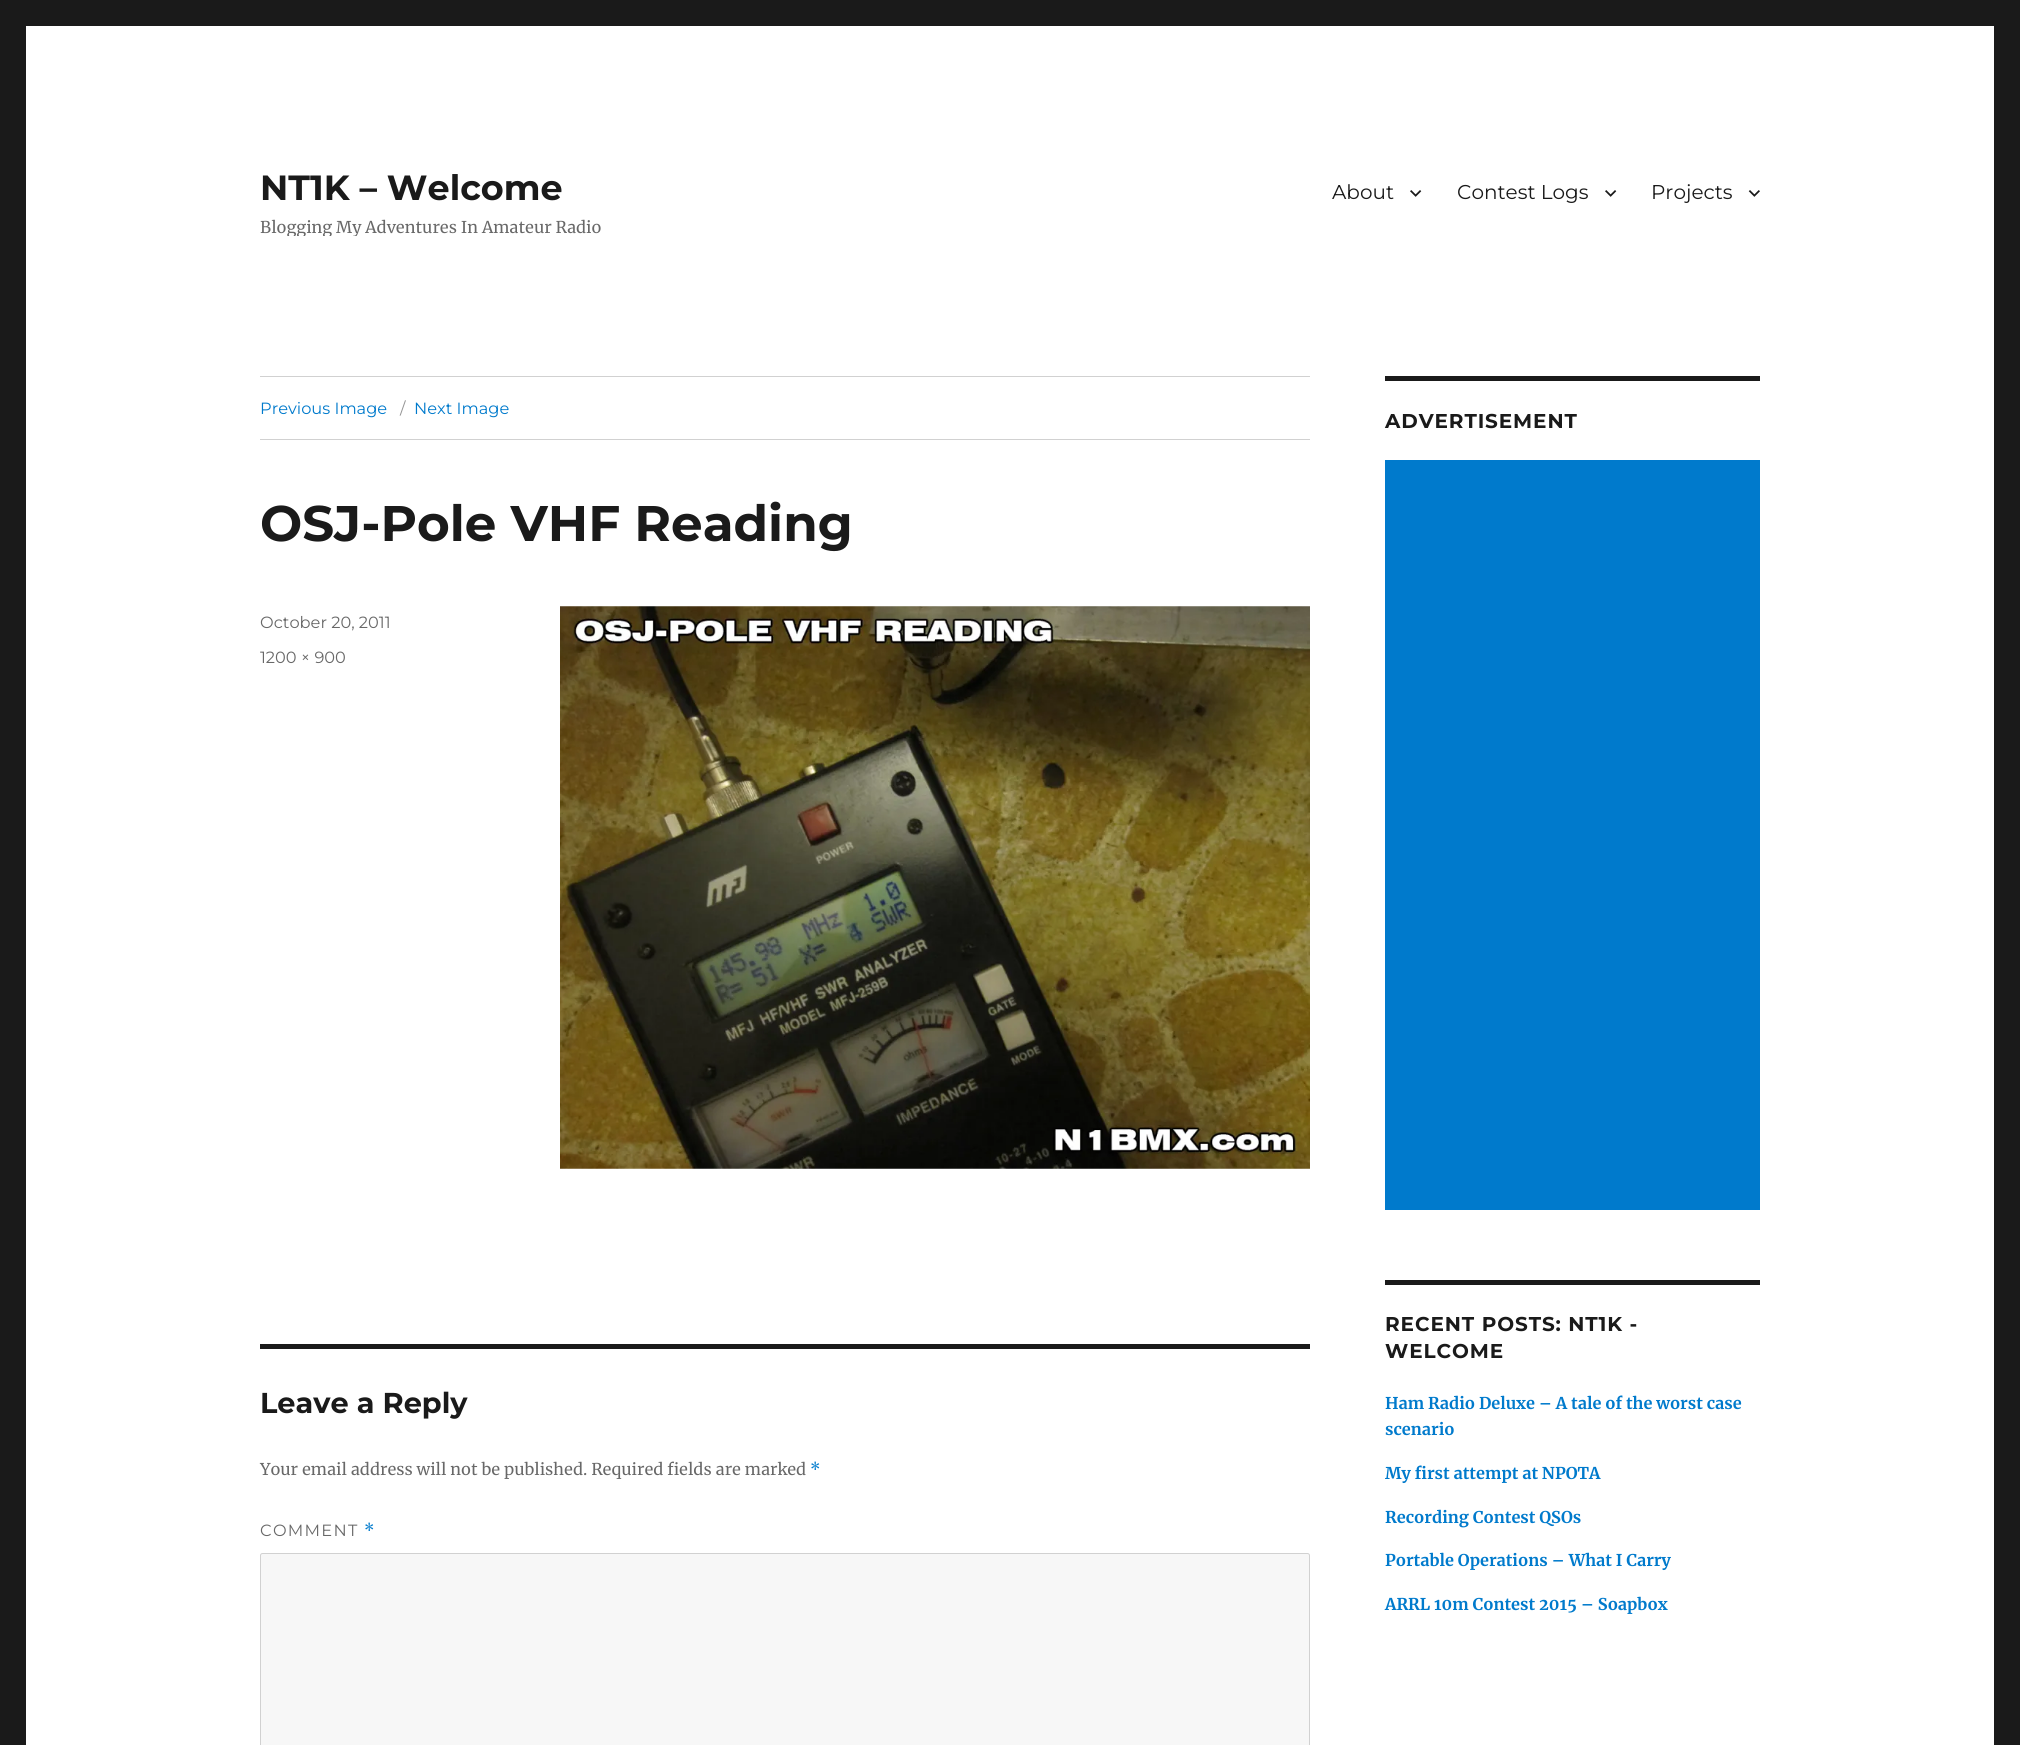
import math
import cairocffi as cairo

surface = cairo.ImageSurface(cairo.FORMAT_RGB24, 2020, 1745)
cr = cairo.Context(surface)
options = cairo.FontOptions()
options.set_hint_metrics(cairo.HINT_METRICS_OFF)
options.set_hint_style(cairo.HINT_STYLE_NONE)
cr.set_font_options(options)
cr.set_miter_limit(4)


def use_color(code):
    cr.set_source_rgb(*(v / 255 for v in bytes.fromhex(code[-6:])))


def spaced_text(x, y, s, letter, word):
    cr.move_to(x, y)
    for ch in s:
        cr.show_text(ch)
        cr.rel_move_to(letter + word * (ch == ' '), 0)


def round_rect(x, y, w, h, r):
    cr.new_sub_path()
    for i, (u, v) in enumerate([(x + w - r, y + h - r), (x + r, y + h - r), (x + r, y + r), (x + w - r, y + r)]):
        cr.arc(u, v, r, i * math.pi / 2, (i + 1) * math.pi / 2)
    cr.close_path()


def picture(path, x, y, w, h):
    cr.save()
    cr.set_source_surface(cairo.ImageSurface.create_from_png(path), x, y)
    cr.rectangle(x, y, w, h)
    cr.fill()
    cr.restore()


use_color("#1a1a1a")
cr.paint()
use_color("#ffffff")
cr.rectangle(26, 26, 1968, 1719)
cr.fill()
cr.select_font_face("Montserrat Thin")
cr.set_font_size(35)
use_color("#1a1a1a")
cr.move_to(260, 200)
cr.show_text("NT1K – Welcome")
cr.save()
cr.rectangle(260, 166, 341, 70)
cr.clip()
cr.select_font_face("Merriweather")
cr.set_font_size(16.25)
use_color("#686868")
cr.move_to(260, 233)
cr.show_text("Blogging My Adventures In Amateur Radio")
cr.restore()
cr.select_font_face("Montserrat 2 Thin")
cr.set_font_size(20)
cr.move_to(1332, 199)
cr.show_text("About")
picture("img1.png", 1410, 190, 12, 7)
cr.move_to(1457, 199)
cr.show_text("Contest Logs")
picture("img1.png", 1605, 190, 12, 7)
cr.move_to(1651, 199)
cr.show_text("Projects")
picture("img2.png", 1748, 190, 12, 7)
use_color("#d1d1d1")
cr.rectangle(260, 376, 1050, 1)
cr.fill()
cr.rectangle(260, 439, 1050, 1)
cr.fill()
cr.set_font_size(16.25)
use_color("#007acc")
cr.move_to(260, 414)
cr.show_text("Previous Image")
use_color("#959595")
cr.move_to(400, 414)
cr.show_text("/")
use_color("#007acc")
cr.move_to(414, 414)
cr.show_text("Next Image")
cr.select_font_face("Montserrat Thin")
cr.set_font_size(50)
use_color("#1a1a1a")
cr.move_to(260, 541)
cr.show_text("OSJ-Pole VHF Reading")
cr.select_font_face("Montserrat 2 Thin")
cr.set_font_size(16.25)
use_color("#686868")
cr.move_to(260, 628)
cr.show_text("October 20, 2011")
cr.move_to(260, 663)
cr.show_text("1200 × 900")
picture("img3.png", 560, 606, 750, 563)
use_color("#1a1a1a")
cr.rectangle(260, 1344, 1050, 5)
cr.fill()
cr.select_font_face("Montserrat Thin")
cr.set_font_size(28.75)
cr.move_to(260, 1413)
cr.show_text("Leave a Reply")
cr.select_font_face("Merriweather")
cr.set_font_size(16.25)
use_color("#686868")
cr.move_to(260, 1475)
cr.show_text("Your email address will not be published. Required fields are marked")
use_color("#007acc")
cr.move_to(810, 1475)
cr.show_text("*")
cr.select_font_face("Montserrat 2 Thin")
use_color("#686868")
spaced_text(260, 1536, "COMMENT", 1.25, 0)
cr.select_font_face("Merriweather")
use_color("#007acc")
spaced_text(364, 1536, "*", 1.25, 0)
use_color("#f7f7f7")
round_rect(260.5, 1553.5, 1049, 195, 2)
cr.fill_preserve()
use_color("#d1d1d1")
cr.set_line_width(1)
cr.stroke()
use_color("#1a1a1a")
cr.rectangle(1385, 376, 375, 5)
cr.fill()
cr.select_font_face("Montserrat Thin")
cr.set_font_size(20)
spaced_text(1385, 428, "ADVERTISEMENT", 0.9, 0)
use_color("#007acc")
cr.rectangle(1385, 460, 375, 750)
cr.fill()
use_color("#1a1a1a")
cr.rectangle(1385, 1280, 375, 5)
cr.fill()
spaced_text(1385, 1331, "RECENT POSTS: NT1K -", 0.9, 0)
spaced_text(1385, 1358, "WELCOME", 0.9, 0)
cr.select_font_face("Merriweather", cairo.FONT_SLANT_NORMAL, cairo.FONT_WEIGHT_BOLD)
cr.set_font_size(16.25)
use_color("#007acc")
cr.move_to(1385, 1409)
cr.show_text("Ham Radio Deluxe – A tale of the worst case")
cr.move_to(1385, 1435)
cr.show_text("scenario")
cr.move_to(1385, 1479)
cr.show_text("My first attempt at NPOTA")
cr.move_to(1385, 1523)
cr.show_text("Recording Contest QSOs")
cr.move_to(1385, 1566)
cr.show_text("Portable Operations – What I Carry")
cr.move_to(1385, 1610)
cr.show_text("ARRL 10m Contest 2015 – Soapbox")
surface.write_to_png("result.png")
